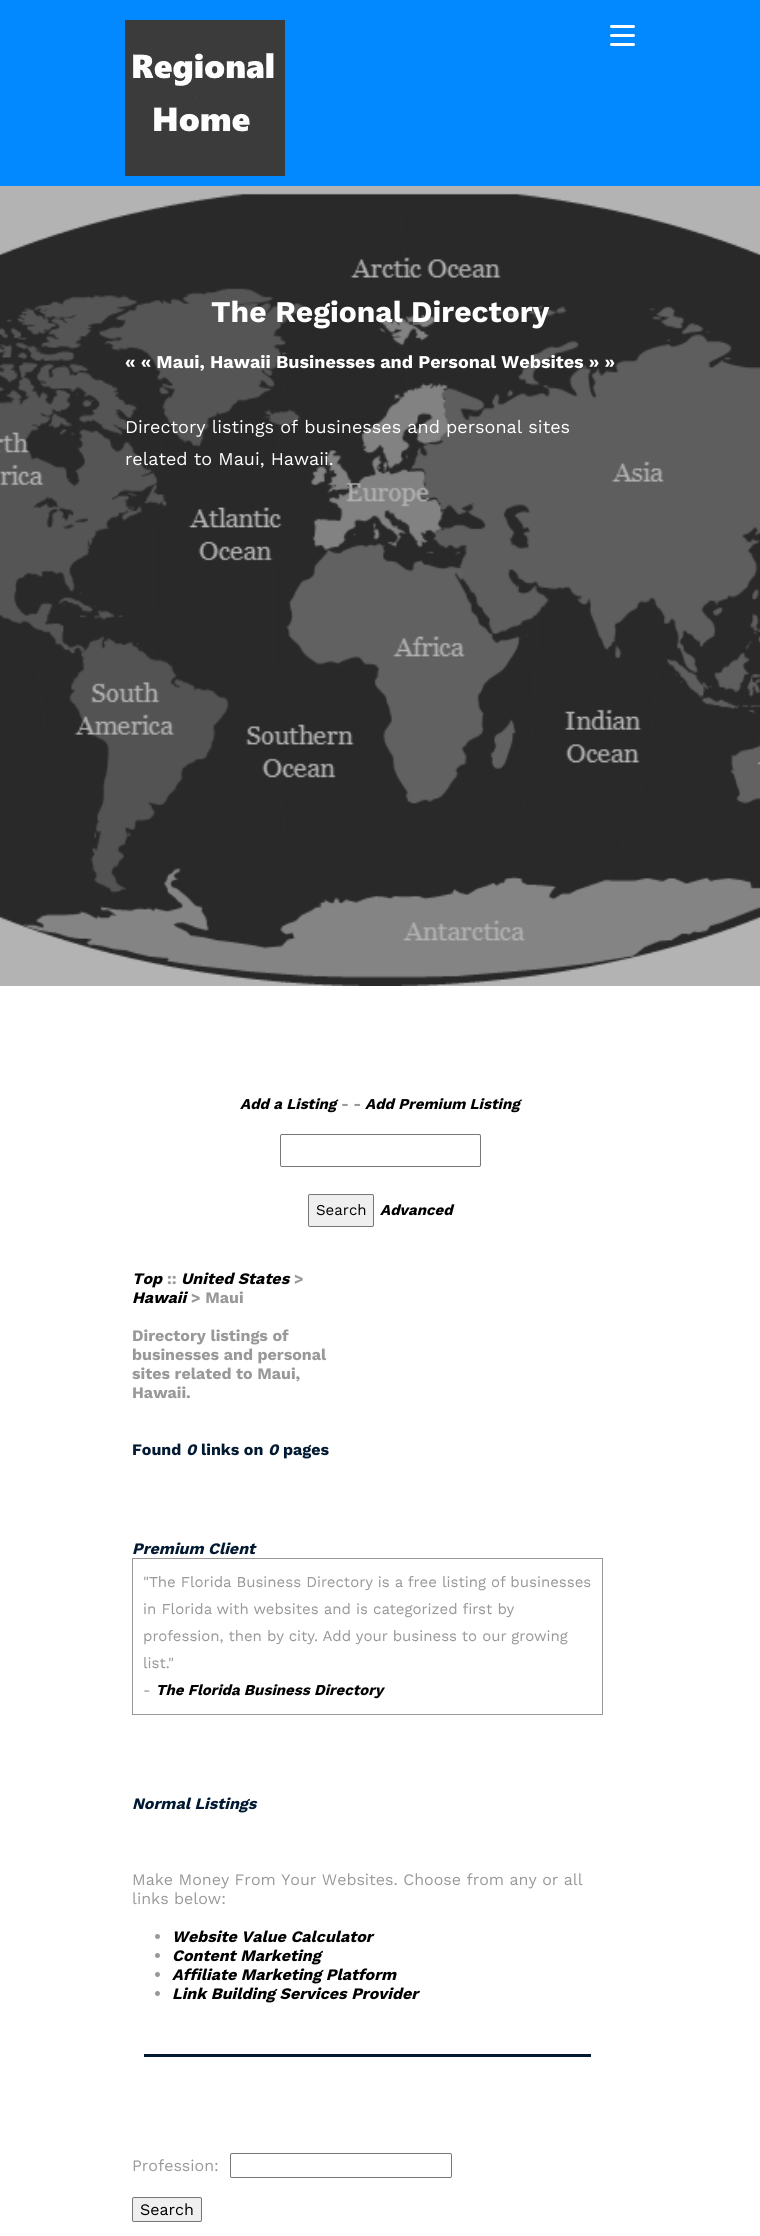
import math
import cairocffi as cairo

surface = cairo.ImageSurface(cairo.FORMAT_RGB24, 760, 2236)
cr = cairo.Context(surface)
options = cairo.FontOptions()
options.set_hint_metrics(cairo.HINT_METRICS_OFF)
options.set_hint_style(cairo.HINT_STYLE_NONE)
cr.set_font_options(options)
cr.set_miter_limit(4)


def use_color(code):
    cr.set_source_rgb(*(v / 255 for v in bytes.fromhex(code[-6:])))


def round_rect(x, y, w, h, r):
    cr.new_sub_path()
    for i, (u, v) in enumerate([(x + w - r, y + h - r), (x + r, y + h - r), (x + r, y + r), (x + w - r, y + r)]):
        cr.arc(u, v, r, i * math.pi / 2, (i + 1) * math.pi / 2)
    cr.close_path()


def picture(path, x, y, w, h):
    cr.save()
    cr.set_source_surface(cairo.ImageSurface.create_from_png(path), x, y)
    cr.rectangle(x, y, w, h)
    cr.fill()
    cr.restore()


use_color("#ffffff")
cr.paint()
use_color("#b3b3b3")
cr.rectangle(0, 186, 760, 800)
cr.fill()
use_color("#0389ff")
cr.rectangle(0, 0, 760, 186)
cr.fill()
picture("img1.png", 125, 20, 160, 156)
use_color("#ffffff")
round_rect(610, 34, 25, 3, 1.5)
cr.fill()
round_rect(610, 25, 25, 3, 1.5)
cr.fill()
round_rect(610, 43, 25, 3, 1.5)
cr.fill()
picture("img2.png", 0, 193, 760, 793)
cr.select_font_face("Work Sans", cairo.FONT_SLANT_NORMAL, cairo.FONT_WEIGHT_BOLD)
cr.set_font_size(30)
cr.move_to(211, 322)
cr.show_text("The Regional Directory")
cr.set_font_size(18)
cr.move_to(125, 368)
cr.show_text("« « Maui, Hawaii Businesses and Personal Websites » »")
cr.select_font_face("Work Sans")
cr.move_to(125, 433)
cr.show_text("Directory listings of businesses and personal sites")
cr.move_to(125, 465)
cr.show_text("related to Maui, Hawaii.")
cr.select_font_face("Work Sans", cairo.FONT_SLANT_ITALIC, cairo.FONT_WEIGHT_BOLD)
cr.set_font_size(15)
use_color("#000000")
cr.move_to(240, 1109)
cr.show_text("Add a Listing")
cr.select_font_face("Work Sans", cairo.FONT_SLANT_NORMAL, cairo.FONT_WEIGHT_BOLD)
use_color("#999999")
cr.move_to(341, 1109)
cr.show_text("- -")
cr.select_font_face("Work Sans", cairo.FONT_SLANT_ITALIC, cairo.FONT_WEIGHT_BOLD)
use_color("#000000")
cr.move_to(365, 1109)
cr.show_text("Add Premium Listing")
round_rect(280.5, 1134.5, 200, 32, 1.5)
use_color("#767676")
cr.set_line_width(1)
cr.stroke()
use_color("#efefef")
round_rect(308.5, 1194.5, 65, 32, 1.5)
cr.fill_preserve()
use_color("#767676")
cr.stroke()
cr.select_font_face("Work Sans")
use_color("#000000")
cr.move_to(316, 1215)
cr.show_text("Search")
cr.select_font_face("Work Sans", cairo.FONT_SLANT_ITALIC, cairo.FONT_WEIGHT_BOLD)
cr.move_to(380, 1215)
cr.show_text("Advanced")
cr.set_font_size(16)
cr.move_to(132, 1284)
cr.show_text("Top")
cr.select_font_face("Work Sans", cairo.FONT_SLANT_NORMAL, cairo.FONT_WEIGHT_BOLD)
use_color("#999999")
cr.move_to(167, 1284)
cr.show_text("::")
cr.select_font_face("Work Sans", cairo.FONT_SLANT_ITALIC, cairo.FONT_WEIGHT_BOLD)
use_color("#000000")
cr.move_to(181, 1284)
cr.show_text("United States")
cr.select_font_face("Work Sans", cairo.FONT_SLANT_NORMAL, cairo.FONT_WEIGHT_BOLD)
use_color("#999999")
cr.move_to(294, 1284)
cr.show_text(">")
cr.select_font_face("Work Sans", cairo.FONT_SLANT_ITALIC, cairo.FONT_WEIGHT_BOLD)
use_color("#000000")
cr.move_to(132, 1303)
cr.show_text("Hawaii")
cr.select_font_face("Work Sans", cairo.FONT_SLANT_NORMAL, cairo.FONT_WEIGHT_BOLD)
use_color("#999999")
cr.move_to(191, 1303)
cr.show_text("> Maui")
cr.move_to(132, 1341)
cr.show_text("Directory listings of")
cr.move_to(132, 1360)
cr.show_text("businesses and personal")
cr.move_to(132, 1379)
cr.show_text("sites related to Maui,")
cr.move_to(132, 1398)
cr.show_text("Hawaii.")
use_color("#011931")
cr.move_to(132, 1455)
cr.show_text("Found")
cr.select_font_face("Work Sans", cairo.FONT_SLANT_ITALIC, cairo.FONT_WEIGHT_BOLD)
cr.move_to(186, 1455)
cr.show_text("0")
cr.select_font_face("Work Sans", cairo.FONT_SLANT_NORMAL, cairo.FONT_WEIGHT_BOLD)
cr.move_to(201, 1455)
cr.show_text("links on")
cr.select_font_face("Work Sans", cairo.FONT_SLANT_ITALIC, cairo.FONT_WEIGHT_BOLD)
cr.move_to(268, 1455)
cr.show_text("0")
cr.select_font_face("Work Sans", cairo.FONT_SLANT_NORMAL, cairo.FONT_WEIGHT_BOLD)
cr.move_to(283, 1455)
cr.show_text("pages")
cr.select_font_face("Work Sans", cairo.FONT_SLANT_ITALIC, cairo.FONT_WEIGHT_BOLD)
cr.move_to(132, 1554)
cr.show_text("Premium Client")
picture("img3.png", 132, 1558, 471, 157)
cr.move_to(132, 1809)
cr.show_text("Normal Listings")
cr.select_font_face("Work Sans")
use_color("#999999")
cr.move_to(132, 1885)
cr.show_text("Make Money From Your Websites. Choose from any or all")
cr.move_to(132, 1904)
cr.show_text("links below:")
cr.new_path()
cr.arc(157.5, 1936.5, 2.5, 0, 2 * math.pi)
cr.fill()
cr.select_font_face("Work Sans", cairo.FONT_SLANT_ITALIC, cairo.FONT_WEIGHT_BOLD)
use_color("#000000")
cr.move_to(172, 1942)
cr.show_text("Website Value Calculator")
use_color("#999999")
cr.new_path()
cr.arc(157.5, 1955.5, 2.5, 0, 2 * math.pi)
cr.fill()
use_color("#000000")
cr.move_to(172, 1961)
cr.show_text("Content Marketing")
use_color("#999999")
cr.new_path()
cr.arc(157.5, 1974.5, 2.5, 0, 2 * math.pi)
cr.fill()
use_color("#000000")
cr.move_to(172, 1980)
cr.show_text("Affiliate Marketing Platform")
use_color("#999999")
cr.new_path()
cr.arc(157.5, 1993.5, 2.5, 0, 2 * math.pi)
cr.fill()
use_color("#000000")
cr.move_to(172, 1999)
cr.show_text("Link Building Services Provider")
use_color("#011931")
cr.rectangle(144, 2055, 447, 2)
cr.fill()
use_color("#01172c")
cr.rectangle(144, 2054, 447, 1)
cr.fill()
cr.select_font_face("Work Sans")
use_color("#999999")
cr.move_to(132, 2171)
cr.show_text("Profession:")
round_rect(230.5, 2153.5, 221, 24, 1.5)
use_color("#767676")
cr.stroke()
use_color("#efefef")
round_rect(132.5, 2197.5, 69, 24, 1.5)
cr.fill_preserve()
use_color("#767676")
cr.stroke()
use_color("#000000")
cr.move_to(140, 2215)
cr.show_text("Search")
surface.write_to_png("result.png")
